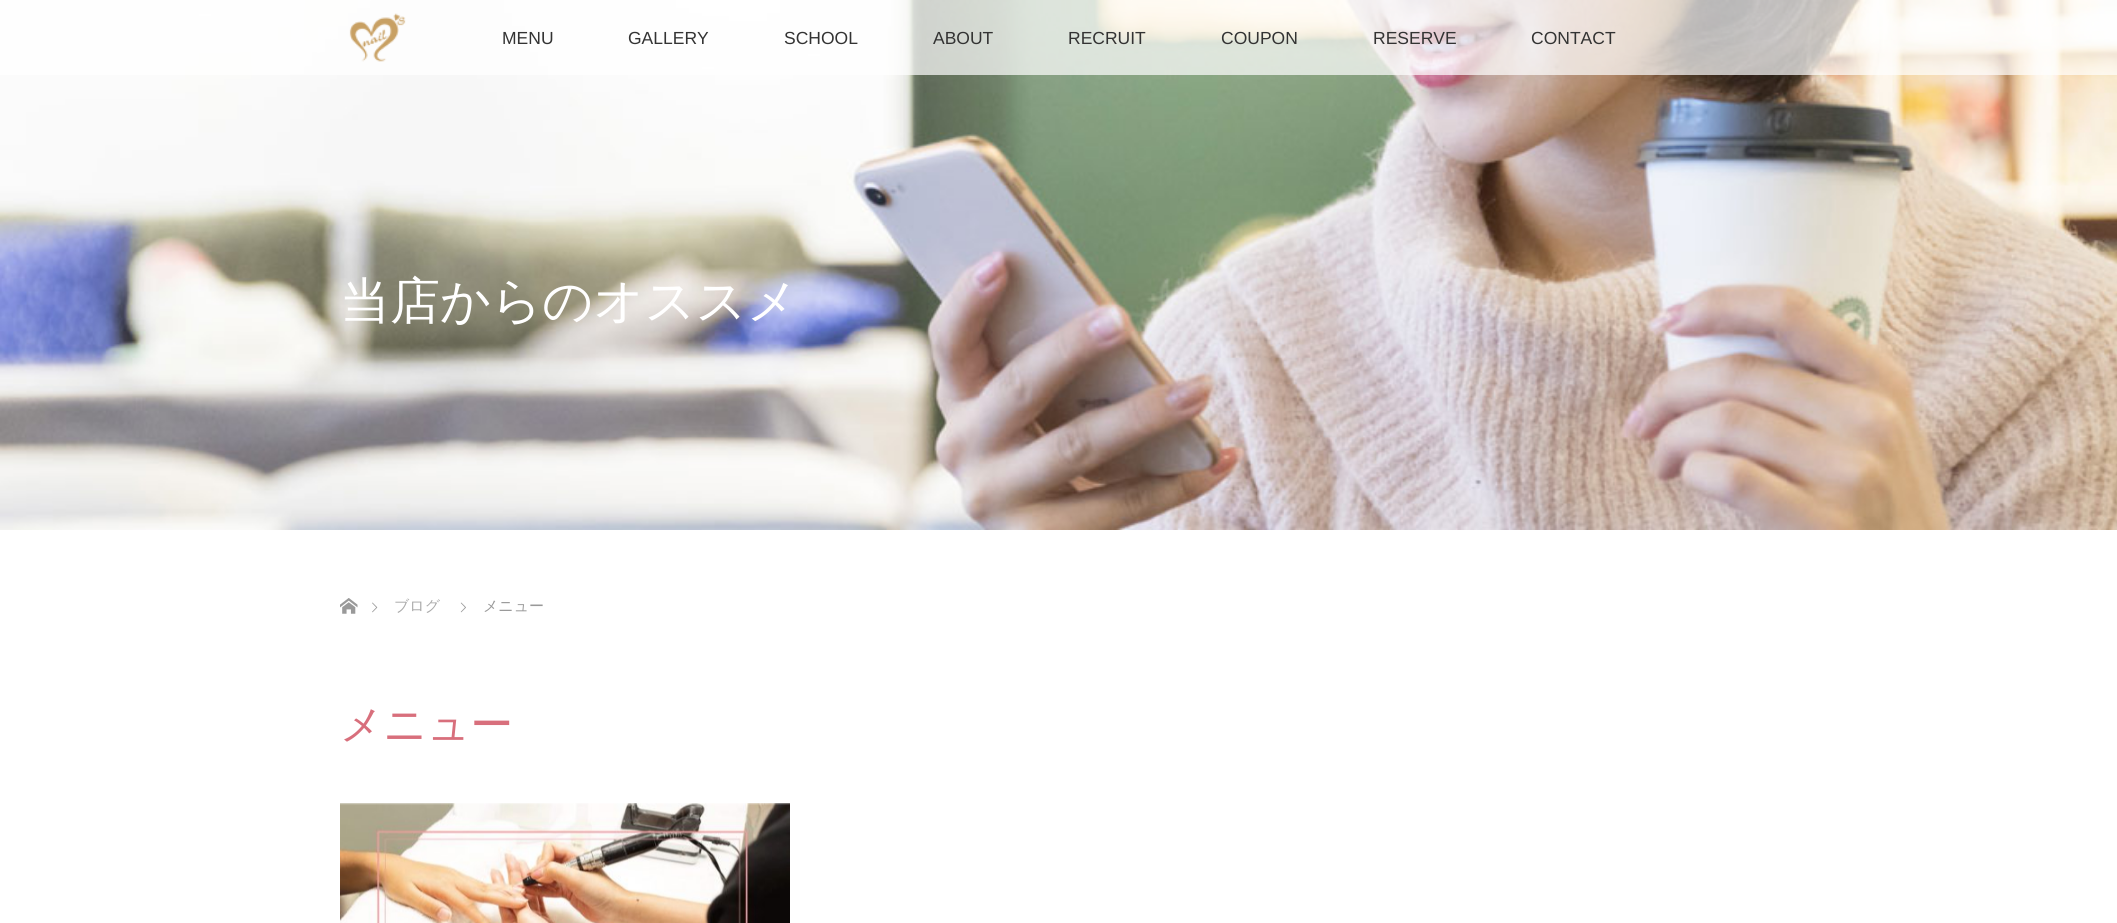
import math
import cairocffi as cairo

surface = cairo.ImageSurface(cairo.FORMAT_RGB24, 2117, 923)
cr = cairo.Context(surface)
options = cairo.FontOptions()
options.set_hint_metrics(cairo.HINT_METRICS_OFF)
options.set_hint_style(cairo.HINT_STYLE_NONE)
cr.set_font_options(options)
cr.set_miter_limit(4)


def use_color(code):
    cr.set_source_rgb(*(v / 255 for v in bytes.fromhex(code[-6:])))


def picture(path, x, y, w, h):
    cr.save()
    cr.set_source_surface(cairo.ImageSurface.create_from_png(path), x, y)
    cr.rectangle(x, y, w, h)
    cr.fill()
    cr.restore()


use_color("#ffffff")
cr.paint()
picture("img2.png", 0, 0, 2117, 530)
cr.set_source_rgba(1, 1, 1, 0.7)
cr.rectangle(0, 0, 2117, 75)
cr.fill()
picture("img1.png", 349, 13, 57, 49)
cr.select_font_face("Liberation Sans")
cr.set_font_size(17.5)
use_color("#333333")
cr.move_to(502, 44)
cr.show_text("MENU")
cr.move_to(628, 44)
cr.show_text("GALLERY")
cr.move_to(784, 44)
cr.show_text("SCHOOL")
cr.move_to(933, 44)
cr.show_text("ABOUT")
cr.move_to(1068, 44)
cr.show_text("RECRUIT")
cr.move_to(1221, 44)
cr.show_text("COUPON")
cr.move_to(1373, 44)
cr.show_text("RESERVE")
cr.move_to(1531, 44)
cr.show_text("CONTACT")
cr.select_font_face("WenQuanYi Zen Hei Medium")
cr.set_font_size(50)
use_color("#ffffff")
cr.move_to(340, 318)
cr.show_text("当店からのオススメ")
picture("img3.png", 340, 598, 18, 16)
picture("img4.png", 372, 602, 6, 11)
cr.set_font_size(15)
use_color("#aaaaaa")
cr.move_to(394, 611)
cr.show_text("ブログ")
picture("img5.png", 460, 602, 6, 11)
use_color("#999999")
cr.move_to(483, 611)
cr.show_text("メニュー")
cr.set_font_size(42.5)
use_color("#d86f7c")
cr.move_to(340, 739)
cr.show_text("メニュー")
picture("img6.png", 340, 803, 450, 120)
surface.write_to_png("result.png")
